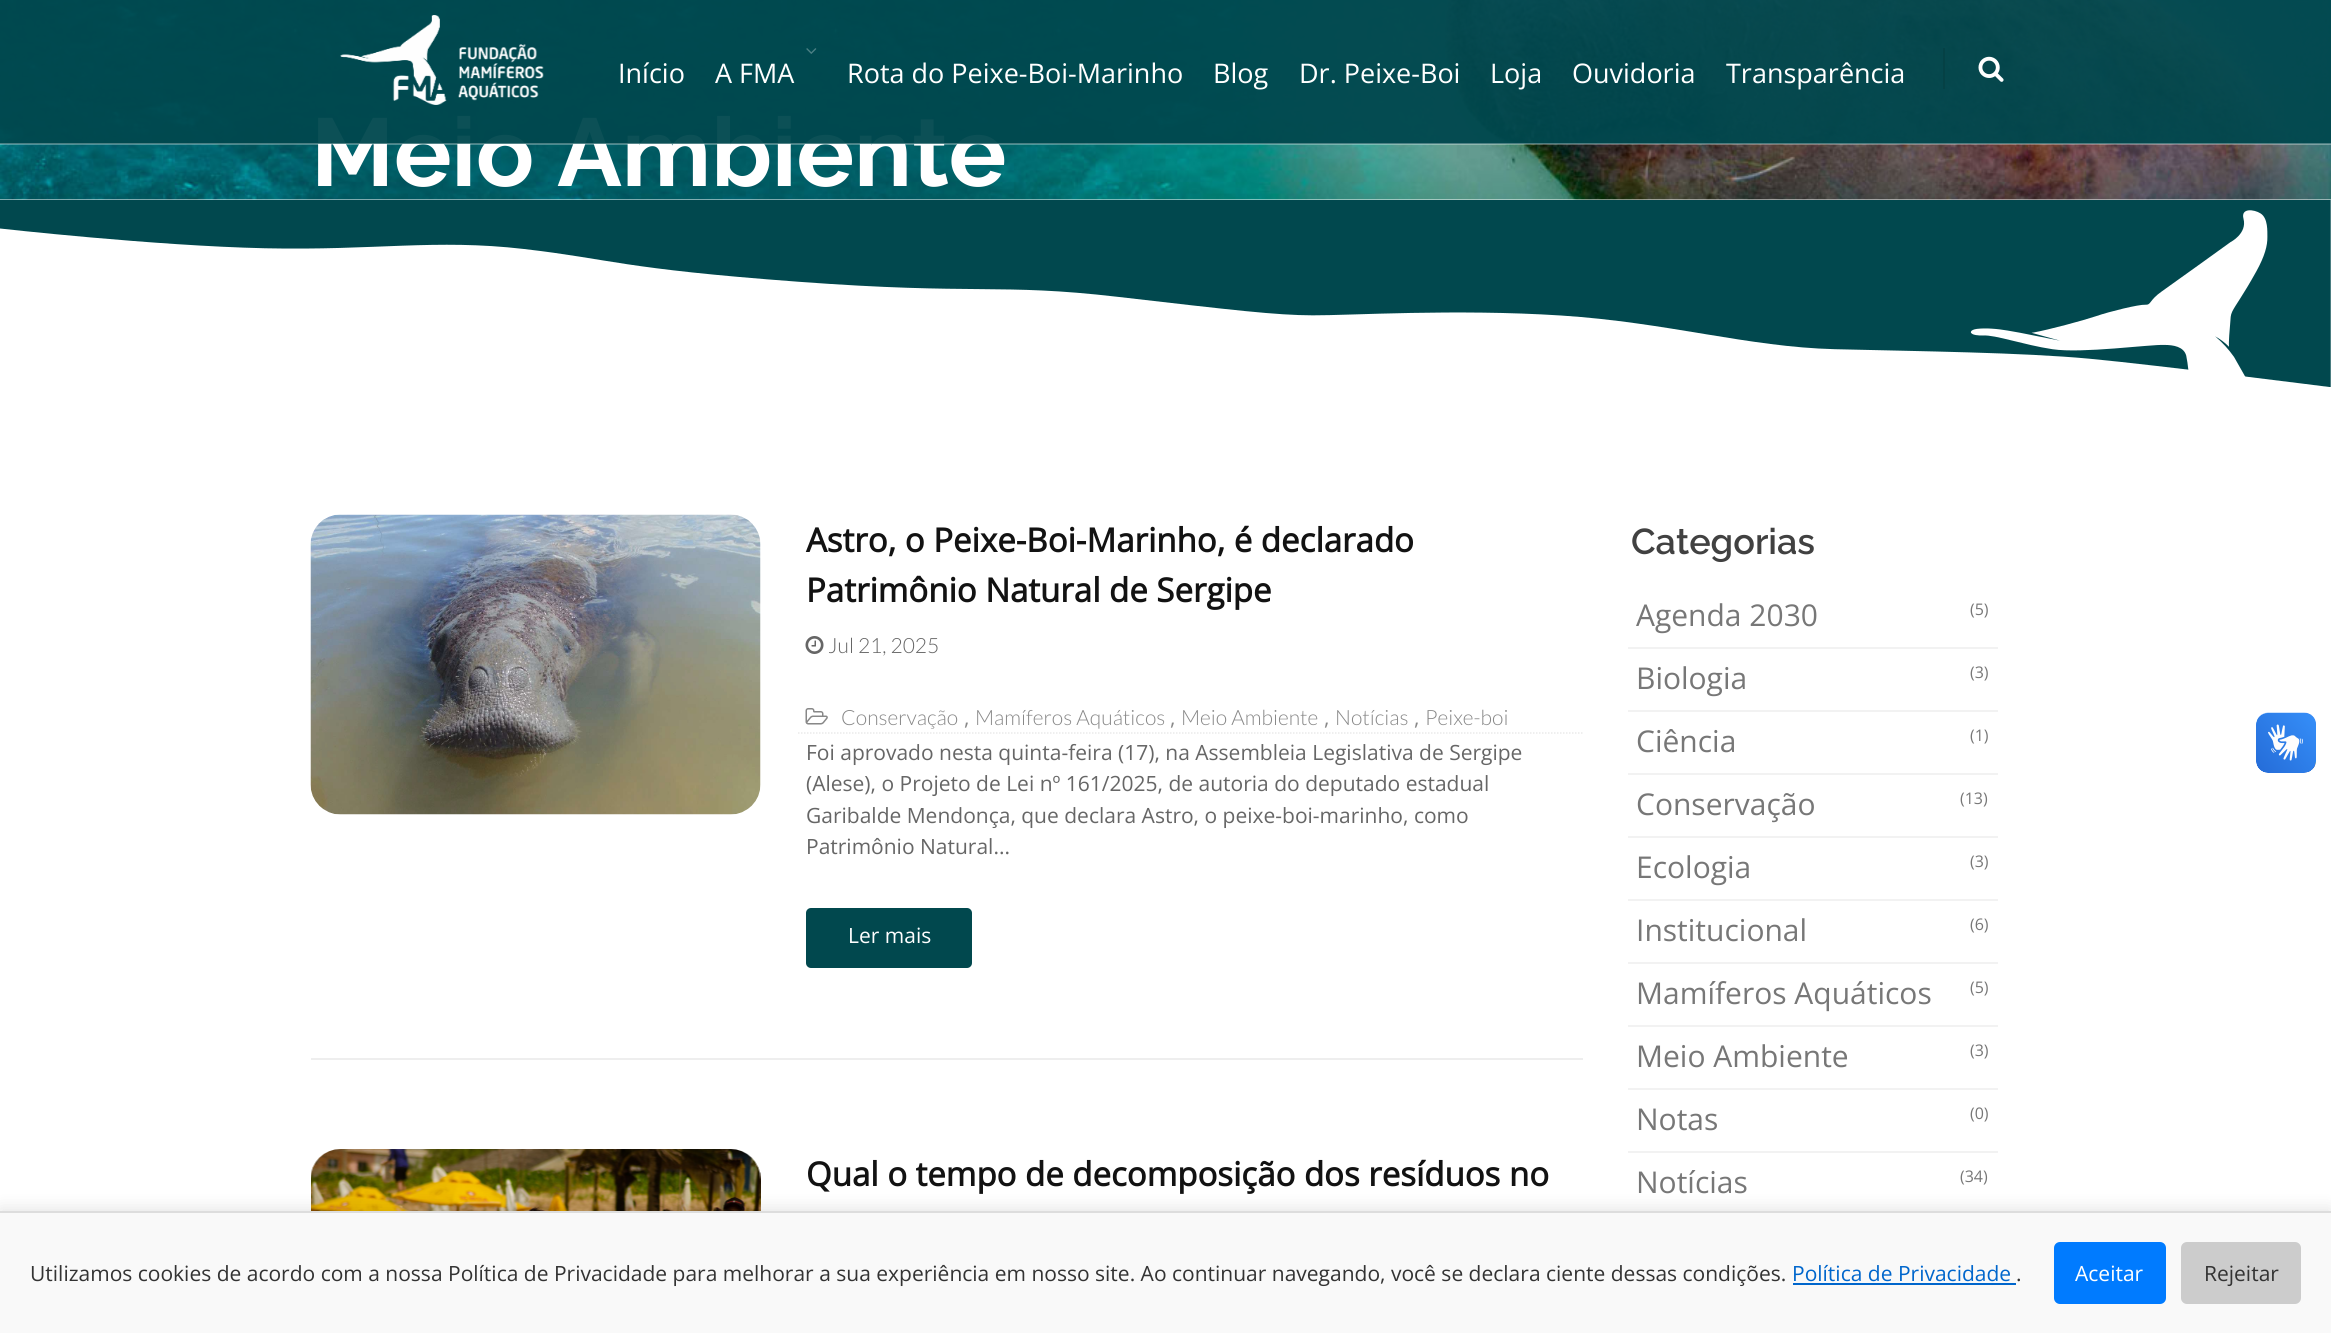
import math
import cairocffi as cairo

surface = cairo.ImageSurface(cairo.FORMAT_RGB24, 2331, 1333)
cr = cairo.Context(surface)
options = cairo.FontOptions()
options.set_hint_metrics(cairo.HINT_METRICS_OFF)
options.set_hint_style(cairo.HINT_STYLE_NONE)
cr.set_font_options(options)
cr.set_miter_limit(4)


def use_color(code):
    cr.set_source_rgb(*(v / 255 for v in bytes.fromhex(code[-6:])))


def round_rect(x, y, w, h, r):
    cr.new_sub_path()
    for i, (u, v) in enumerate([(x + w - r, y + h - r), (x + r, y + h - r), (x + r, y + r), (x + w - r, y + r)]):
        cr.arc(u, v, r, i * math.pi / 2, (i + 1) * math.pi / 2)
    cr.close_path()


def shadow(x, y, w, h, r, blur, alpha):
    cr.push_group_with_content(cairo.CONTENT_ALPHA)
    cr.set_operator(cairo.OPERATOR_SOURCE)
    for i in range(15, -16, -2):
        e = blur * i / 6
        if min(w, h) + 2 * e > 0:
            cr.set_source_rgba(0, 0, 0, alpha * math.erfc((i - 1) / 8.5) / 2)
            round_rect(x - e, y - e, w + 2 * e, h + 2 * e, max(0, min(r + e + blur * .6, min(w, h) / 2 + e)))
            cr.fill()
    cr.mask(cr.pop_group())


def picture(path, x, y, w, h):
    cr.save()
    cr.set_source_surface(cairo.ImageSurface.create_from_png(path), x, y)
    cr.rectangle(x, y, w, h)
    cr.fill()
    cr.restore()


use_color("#ffffff")
cr.paint()
picture("img4.png", 0, 0, 2331, 200)
cr.select_font_face("Raleway", cairo.FONT_SLANT_NORMAL, cairo.FONT_WEIGHT_BOLD)
cr.set_font_size(96)
use_color("#ffffff")
cr.move_to(311, 186)
cr.show_text("Meio Ambiente")
cr.set_source_rgba(0, 0.282, 0.306, 0.95)
cr.rectangle(0, 0, 2331, 144)
cr.fill()
cr.set_source_rgba(1, 1, 1, 0.3)
cr.rectangle(0, 143, 2331, 2)
cr.fill()
picture("img1.png", 340, 15, 204, 90)
cr.select_font_face("Open Sans")
cr.set_font_size(27)
use_color("#ffffff")
cr.move_to(618, 83)
cr.show_text("Início")
picture("img2.png", 806, 48, 11, 6)
cr.move_to(715, 83)
cr.show_text("A FMA")
cr.move_to(847, 83)
cr.show_text("Rota do Peixe-Boi-Marinho")
cr.move_to(1213, 83)
cr.show_text("Blog")
cr.move_to(1299, 83)
cr.show_text("Dr. Peixe-Boi")
cr.move_to(1490, 83)
cr.show_text("Loja")
cr.move_to(1572, 83)
cr.show_text("Ouvidoria")
cr.move_to(1726, 83)
cr.show_text("Transparência")
use_color("#054145")
cr.rectangle(1943, 48, 2, 41)
cr.fill()
picture("img3.png", 1978, 56, 26, 26)
picture("img5.png", 0, 200, 2331, 187)
use_color("#eeeeee")
cr.rectangle(311, 1058, 1272, 2)
cr.fill()
picture("img6.png", 310, 514, 451, 301)
cr.select_font_face("Open Sans", cairo.FONT_SLANT_NORMAL, cairo.FONT_WEIGHT_BOLD)
cr.set_font_size(33)
use_color("#121212")
cr.move_to(806, 552)
cr.show_text("Astro, o Peixe-Boi-Marinho, é declarado")
cr.move_to(806, 602)
cr.show_text("Patrimônio Natural de Sergipe")
cr.new_path()
cr.move_to(798, 733)
cr.line_to(1582.5, 733)
use_color("#eaeaea")
cr.set_line_width(1.5)
cr.set_dash([1.5, 1.5])
cr.stroke()
picture("img7.png", 805, 636, 19, 18)
cr.select_font_face("Lato Light")
cr.set_font_size(21)
use_color("#666666")
cr.move_to(828, 653)
cr.show_text("Jul 21, 2025")
picture("img8.png", 805, 708, 23, 17)
use_color("#888888")
cr.move_to(841, 725)
cr.show_text("Conservação")
cr.select_font_face("Open Sans")
cr.move_to(964, 725)
cr.show_text(",")
cr.select_font_face("Lato Light")
cr.move_to(975, 725)
cr.show_text("Mamíferos Aquáticos")
cr.select_font_face("Open Sans")
cr.move_to(1170, 725)
cr.show_text(",")
cr.select_font_face("Lato Light")
cr.move_to(1181, 725)
cr.show_text("Meio Ambiente")
cr.select_font_face("Open Sans")
cr.move_to(1324, 725)
cr.show_text(",")
cr.select_font_face("Lato Light")
cr.move_to(1335, 725)
cr.show_text("Notícias")
cr.select_font_face("Open Sans")
cr.move_to(1414, 725)
cr.show_text(",")
cr.select_font_face("Lato Light")
cr.move_to(1425, 725)
cr.show_text("Peixe-boi")
cr.select_font_face("Open Sans")
use_color("#666666")
cr.move_to(806, 760)
cr.show_text("Foi aprovado nesta quinta-feira (17), na Assembleia Legislativa de Sergipe")
cr.move_to(806, 791)
cr.show_text("(Alese), o Projeto de Lei nº 161/2025, de autoria do deputado estadual")
cr.move_to(806, 823)
cr.show_text("Garibalde Mendonça, que declara Astro, o peixe-boi-marinho, como")
cr.move_to(806, 854)
cr.show_text("Patrimônio Natural...")
use_color("#01484e")
round_rect(806, 908, 166, 60, 5)
cr.fill()
use_color("#ffffff")
cr.move_to(848, 943)
cr.show_text("Ler mais")
picture("img9.png", 311, 1149, 450, 62)
cr.select_font_face("Open Sans", cairo.FONT_SLANT_NORMAL, cairo.FONT_WEIGHT_BOLD)
cr.set_font_size(33)
use_color("#121212")
cr.move_to(806, 1186)
cr.show_text("Qual o tempo de decomposição dos resíduos no")
cr.select_font_face("Raleway SemiBold")
cr.set_font_size(36)
use_color("#414141")
cr.move_to(1631, 554)
cr.show_text("Categorias")
use_color("#f2f2f2")
cr.rectangle(1628, 647, 370, 2)
cr.fill()
cr.select_font_face("Open Sans")
cr.set_font_size(30)
use_color("#777777")
cr.move_to(1636, 626)
cr.show_text("Agenda 2030")
cr.set_font_size(16)
cr.move_to(1970, 615)
cr.show_text("(5)")
use_color("#f2f2f2")
cr.rectangle(1628, 710, 370, 2)
cr.fill()
cr.set_font_size(30)
use_color("#777777")
cr.move_to(1636, 689)
cr.show_text("Biologia")
cr.set_font_size(16)
cr.move_to(1970, 678)
cr.show_text("(3)")
use_color("#f2f2f2")
cr.rectangle(1628, 773, 370, 2)
cr.fill()
cr.set_font_size(30)
use_color("#777777")
cr.move_to(1636, 752)
cr.show_text("Ciência")
cr.set_font_size(16)
cr.move_to(1970, 741)
cr.show_text("(1)")
use_color("#f2f2f2")
cr.rectangle(1628, 836, 370, 2)
cr.fill()
cr.set_font_size(30)
use_color("#777777")
cr.move_to(1636, 815)
cr.show_text("Conservação")
cr.set_font_size(16)
cr.move_to(1960, 804)
cr.show_text("(13)")
use_color("#f2f2f2")
cr.rectangle(1628, 899, 370, 2)
cr.fill()
cr.set_font_size(30)
use_color("#777777")
cr.move_to(1636, 878)
cr.show_text("Ecologia")
cr.set_font_size(16)
cr.move_to(1970, 867)
cr.show_text("(3)")
use_color("#f2f2f2")
cr.rectangle(1628, 962, 370, 2)
cr.fill()
cr.set_font_size(30)
use_color("#777777")
cr.move_to(1636, 941)
cr.show_text("Institucional")
cr.set_font_size(16)
cr.move_to(1970, 930)
cr.show_text("(6)")
use_color("#f2f2f2")
cr.rectangle(1628, 1025, 370, 2)
cr.fill()
cr.set_font_size(30)
use_color("#777777")
cr.move_to(1636, 1004)
cr.show_text("Mamíferos Aquáticos")
cr.set_font_size(16)
cr.move_to(1970, 993)
cr.show_text("(5)")
use_color("#f2f2f2")
cr.rectangle(1628, 1088, 370, 2)
cr.fill()
cr.set_font_size(30)
use_color("#777777")
cr.move_to(1636, 1067)
cr.show_text("Meio Ambiente")
cr.set_font_size(16)
cr.move_to(1970, 1056)
cr.show_text("(3)")
use_color("#f2f2f2")
cr.rectangle(1628, 1151, 370, 2)
cr.fill()
cr.set_font_size(30)
use_color("#777777")
cr.move_to(1636, 1130)
cr.show_text("Notas")
cr.set_font_size(16)
cr.move_to(1970, 1119)
cr.show_text("(0)")
cr.set_font_size(30)
cr.move_to(1636, 1193)
cr.show_text("Notícias")
cr.set_font_size(16)
cr.move_to(1960, 1182)
cr.show_text("(34)")
picture("img10.png", 2256, 712, 60, 61)
picture("img11.png", 2256, 713, 60, 60)
use_color("#000000")
shadow(0, 1208, 2331, 123, 0, 7.5, 0.1)
use_color("#f9f9f9")
cr.rectangle(0, 1213, 2331, 120)
cr.fill()
use_color("#dddddd")
cr.rectangle(0, 1211, 2331, 2)
cr.fill()
cr.set_font_size(21)
use_color("#333333")
cr.move_to(30, 1281)
cr.show_text("Utilizamos cookies de acordo com a nossa Política de Privacidade para melhorar a sua experiência em nosso site. Ao continuar navegando, você se declara ciente dessas condições.")
use_color("#0066cc")
cr.move_to(1792, 1281)
cr.show_text("Política de Privacidade")
cr.rectangle(1793, 1283, 223, 2)
cr.fill()
use_color("#333333")
cr.move_to(2016, 1281)
cr.show_text(".")
use_color("#007bff")
round_rect(2054, 1242, 112, 62, 6)
cr.fill()
use_color("#ffffff")
cr.move_to(2075, 1281)
cr.show_text("Aceitar")
use_color("#cccccc")
round_rect(2181, 1242, 120, 62, 6)
cr.fill()
use_color("#333333")
cr.move_to(2204, 1281)
cr.show_text("Rejeitar")
surface.write_to_png("result.png")
